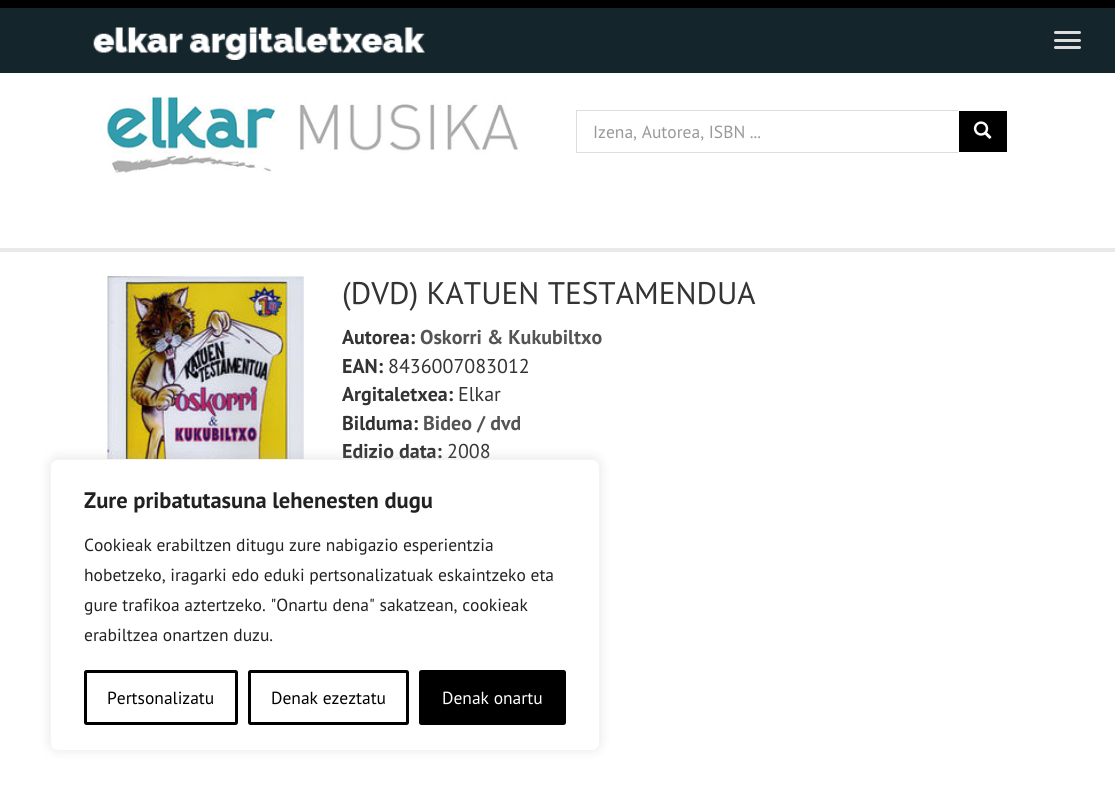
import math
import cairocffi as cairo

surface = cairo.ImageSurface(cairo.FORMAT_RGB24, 1115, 801)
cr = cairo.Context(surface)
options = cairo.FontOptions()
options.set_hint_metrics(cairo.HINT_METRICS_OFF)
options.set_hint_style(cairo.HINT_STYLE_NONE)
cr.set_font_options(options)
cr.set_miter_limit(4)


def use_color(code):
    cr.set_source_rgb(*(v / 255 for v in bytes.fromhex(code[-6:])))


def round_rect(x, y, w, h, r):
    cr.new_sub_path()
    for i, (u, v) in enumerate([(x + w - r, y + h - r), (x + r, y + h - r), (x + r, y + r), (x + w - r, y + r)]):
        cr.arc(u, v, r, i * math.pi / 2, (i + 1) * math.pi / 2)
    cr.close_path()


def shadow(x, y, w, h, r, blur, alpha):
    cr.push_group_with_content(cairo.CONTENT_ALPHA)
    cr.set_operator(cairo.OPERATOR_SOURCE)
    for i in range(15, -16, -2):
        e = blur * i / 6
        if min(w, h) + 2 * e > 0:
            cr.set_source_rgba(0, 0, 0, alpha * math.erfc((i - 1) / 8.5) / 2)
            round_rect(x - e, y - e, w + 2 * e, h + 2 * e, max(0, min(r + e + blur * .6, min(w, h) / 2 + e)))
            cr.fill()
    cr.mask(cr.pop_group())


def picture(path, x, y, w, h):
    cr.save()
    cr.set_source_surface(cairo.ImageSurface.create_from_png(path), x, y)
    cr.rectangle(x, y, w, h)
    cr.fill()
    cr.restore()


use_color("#ffffff")
cr.paint()
use_color("#14252c")
cr.rectangle(0, 8, 1115, 65)
cr.fill()
use_color("#000000")
cr.rectangle(0, 0, 1115, 8)
cr.fill()
picture("img1.png", 93, 27, 332, 33)
use_color("#dddddd")
round_rect(1054, 31, 27, 3, 1.5)
cr.fill()
round_rect(1054, 39, 27, 3, 1.5)
cr.fill()
round_rect(1054, 46, 27, 3, 1.5)
cr.fill()
picture("img2.png", 107, 97, 411, 76)
cr.rectangle(576.5, 110.5, 382, 42)
cr.set_line_width(1)
cr.stroke()
cr.select_font_face("PT Sans")
cr.set_font_size(17.5)
use_color("#999999")
cr.move_to(593, 138)
cr.show_text("Izena, Autorea, ISBN ...")
use_color("#000000")
cr.rectangle(958.5, 110.5, 49, 42)
cr.fill_preserve()
use_color("#ffffff")
cr.stroke()
picture("img3.png", 973, 121, 19, 18)
use_color("#eae9e9")
cr.rectangle(0, 248, 1115, 4)
cr.fill()
picture("img4.png", 107, 276, 197, 183)
cr.set_font_size(31.25)
use_color("#333333")
cr.move_to(342, 304)
cr.show_text("(DVD) KATUEN TESTAMENDUA")
cr.select_font_face("PT Sans", cairo.FONT_SLANT_NORMAL, cairo.FONT_WEIGHT_BOLD)
cr.set_font_size(20)
cr.move_to(342, 344)
cr.show_text("Autorea:")
use_color("#545454")
cr.move_to(420, 344)
cr.show_text("Oskorri & Kukubiltxo")
use_color("#333333")
cr.move_to(342, 373)
cr.show_text("EAN:")
cr.select_font_face("PT Sans")
cr.move_to(388, 373)
cr.show_text("8436007083012")
cr.select_font_face("PT Sans", cairo.FONT_SLANT_NORMAL, cairo.FONT_WEIGHT_BOLD)
cr.move_to(342, 401)
cr.show_text("Argitaletxea:")
cr.select_font_face("PT Sans")
cr.move_to(458, 401)
cr.show_text("Elkar")
cr.select_font_face("PT Sans", cairo.FONT_SLANT_NORMAL, cairo.FONT_WEIGHT_BOLD)
cr.move_to(342, 430)
cr.show_text("Bilduma:")
use_color("#545454")
cr.move_to(423, 430)
cr.show_text("Bideo / dvd")
use_color("#333333")
cr.move_to(342, 458)
cr.show_text("Edizio data:")
cr.select_font_face("PT Sans")
cr.move_to(447, 458)
cr.show_text("2008")
use_color("#acabab")
shadow(50, 458, 550, 292, 8, 6, 0.3)
use_color("#ffffff")
round_rect(50.5, 459.5, 549, 291, 7.5)
cr.fill_preserve()
use_color("#f4f4f4")
cr.stroke()
cr.select_font_face("PT Sans", cairo.FONT_SLANT_NORMAL, cairo.FONT_WEIGHT_BOLD)
cr.set_font_size(22.5)
use_color("#212121")
cr.move_to(84, 508)
cr.show_text("Zure pribatutasuna lehenesten dugu")
cr.select_font_face("PT Sans")
cr.set_font_size(17.5)
cr.move_to(84, 551)
cr.show_text("Cookieak erabiltzen ditugu zure nabigazio esperientzia")
cr.move_to(84, 581)
cr.show_text("hobetzeko, iragarki edo eduki pertsonalizatuak eskaintzeko eta")
cr.move_to(84, 611)
cr.show_text("gure trafikoa aztertzeko. \"Onartu dena\" sakatzean, cookieak")
cr.move_to(84, 641)
cr.show_text("erabiltzea onartzen duzu.")
round_rect(85.5, 671.5, 151, 52, 1)
use_color("#000000")
cr.set_line_width(3)
cr.stroke()
cr.move_to(107, 704)
cr.show_text("Pertsonalizatu")
round_rect(249.5, 671.5, 158, 52, 1)
cr.stroke()
cr.move_to(271, 704)
cr.show_text("Denak ezeztatu")
round_rect(420.5, 671.5, 144, 52, 1)
cr.fill_preserve()
cr.stroke()
use_color("#ffffff")
cr.move_to(442, 704)
cr.show_text("Denak onartu")
surface.write_to_png("result.png")
